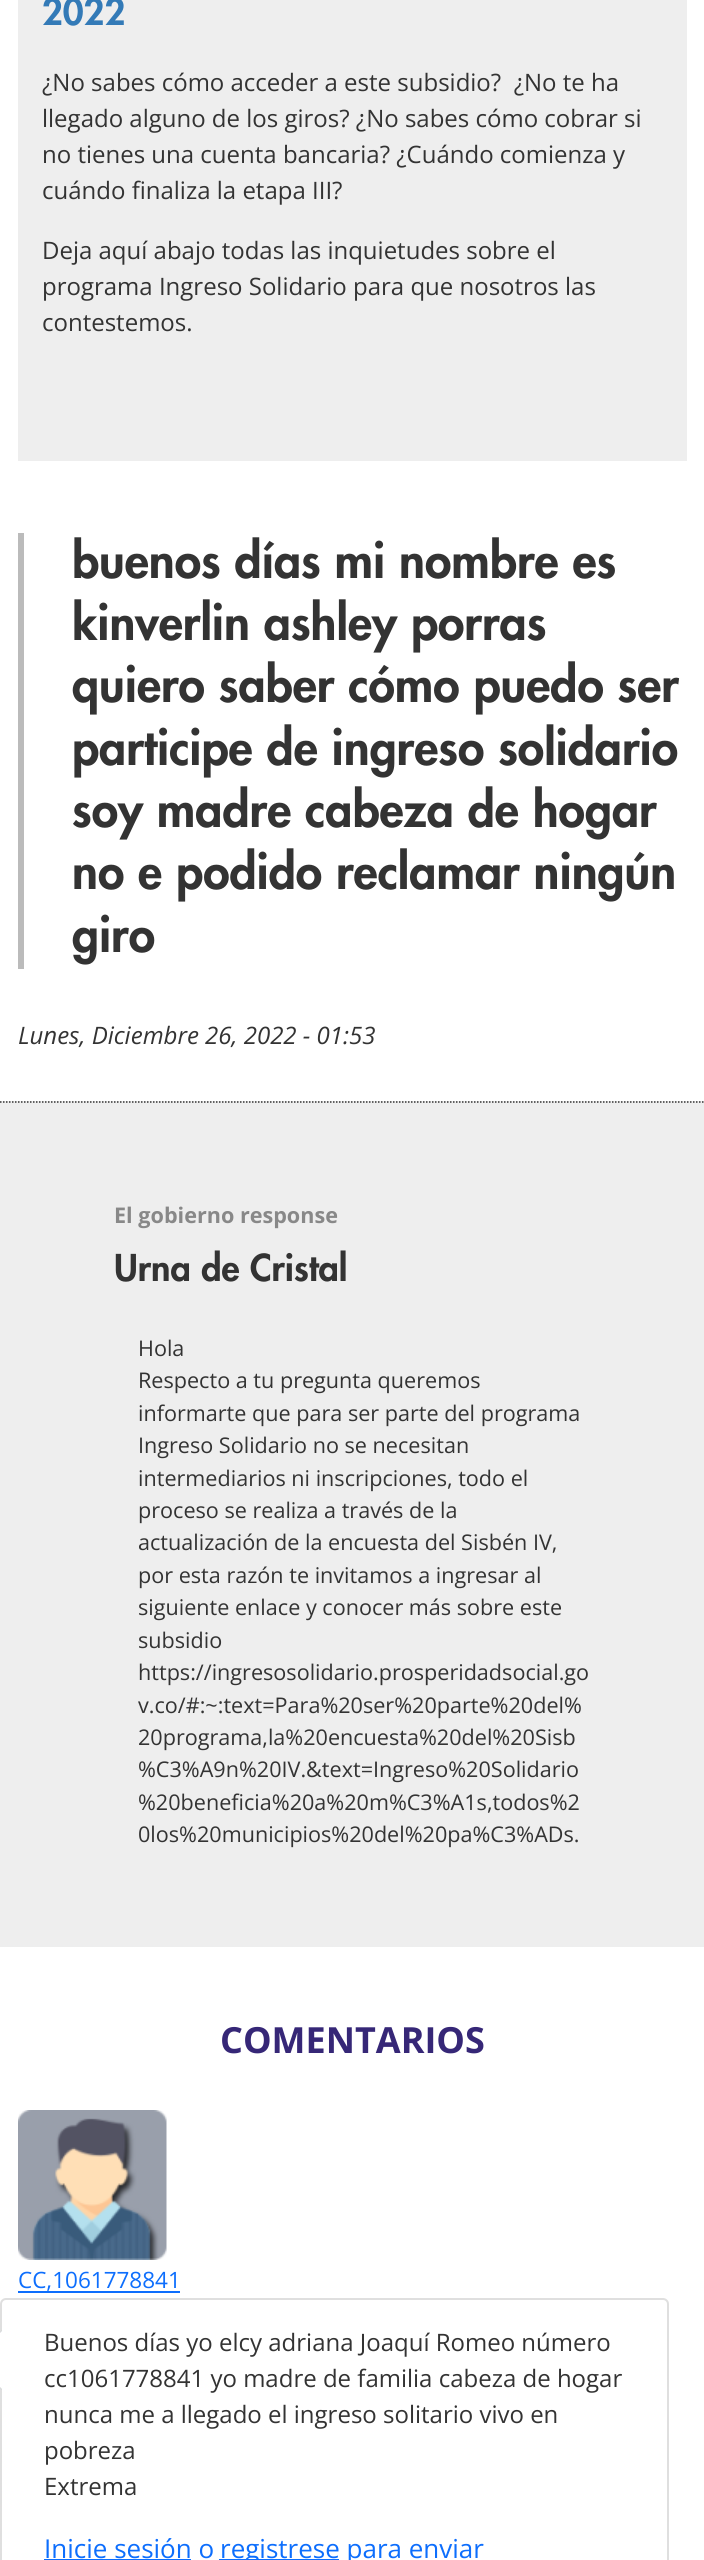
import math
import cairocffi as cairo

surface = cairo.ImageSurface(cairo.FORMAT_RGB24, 704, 2560)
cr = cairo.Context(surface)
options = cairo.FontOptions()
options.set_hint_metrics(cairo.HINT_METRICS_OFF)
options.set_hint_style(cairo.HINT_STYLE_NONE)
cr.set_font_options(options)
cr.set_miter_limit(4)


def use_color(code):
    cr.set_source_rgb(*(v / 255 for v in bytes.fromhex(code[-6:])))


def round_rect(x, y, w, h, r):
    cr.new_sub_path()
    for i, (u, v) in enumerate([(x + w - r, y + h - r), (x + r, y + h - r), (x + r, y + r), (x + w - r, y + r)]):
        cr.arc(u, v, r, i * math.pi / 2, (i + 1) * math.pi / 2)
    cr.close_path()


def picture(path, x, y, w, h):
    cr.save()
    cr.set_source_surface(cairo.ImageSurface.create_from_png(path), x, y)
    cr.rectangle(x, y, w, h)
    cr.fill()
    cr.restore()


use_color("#ffffff")
cr.paint()
use_color("#eeeeee")
cr.rectangle(18, 0, 669, 461)
cr.fill()
cr.select_font_face("Futura Black")
cr.set_font_size(36)
use_color("#337ab7")
cr.move_to(42, 25)
cr.show_text("2022")
cr.select_font_face("Open Sans")
cr.set_font_size(24)
use_color("#333333")
cr.move_to(42, 91)
cr.show_text("¿No sabes cómo acceder a este subsidio?  ¿No te ha")
cr.move_to(42, 127)
cr.show_text("llegado alguno de los giros? ¿No sabes cómo cobrar si")
cr.move_to(42, 163)
cr.show_text("no tienes una cuenta bancaria? ¿Cuándo comienza y")
cr.move_to(42, 199)
cr.show_text("cuándo finaliza la etapa III?")
cr.move_to(42, 259)
cr.show_text("Deja aquí abajo todas las inquietudes sobre el")
cr.move_to(42, 295)
cr.show_text("programa Ingreso Solidario para que nosotros las")
cr.move_to(42, 331)
cr.show_text("contestemos.")
use_color("#bbbbbb")
cr.rectangle(18, 533, 6, 436)
cr.fill()
cr.select_font_face("Futura Black")
cr.set_font_size(48)
use_color("#333333")
cr.move_to(72, 578)
cr.show_text("buenos días mi nombre es")
cr.move_to(72, 640)
cr.show_text("kinverlin ashley porras")
cr.move_to(72, 702)
cr.show_text("quiero saber cómo puedo ser")
cr.move_to(72, 765)
cr.show_text("participe de ingreso solidario")
cr.move_to(72, 827)
cr.show_text("soy madre cabeza de hogar")
cr.move_to(72, 889)
cr.show_text("no e podido reclamar ningún")
cr.move_to(72, 952)
cr.show_text("giro")
cr.select_font_face("Open Sans", cairo.FONT_SLANT_ITALIC)
cr.set_font_size(24)
cr.move_to(18, 1044)
cr.show_text("Lunes, Diciembre 26, 2022 - 01:53")
use_color("#eeeeee")
cr.rectangle(0, 1101, 704, 846)
cr.fill()
cr.new_path()
cr.move_to(0, 1102)
cr.line_to(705, 1102)
use_color("#333333")
cr.set_line_width(1.5)
cr.set_dash([1.5, 1.5])
cr.stroke()
cr.select_font_face("Open Sans", cairo.FONT_SLANT_NORMAL, cairo.FONT_WEIGHT_BOLD)
cr.set_font_size(21.6)
use_color("#888888")
cr.move_to(114, 1223)
cr.show_text("El gobierno response")
cr.select_font_face("Futura Black")
cr.set_font_size(36)
use_color("#333333")
cr.move_to(114, 1281)
cr.show_text("Urna de Cristal")
cr.select_font_face("Open Sans")
cr.set_font_size(21.6)
cr.move_to(138, 1356)
cr.show_text("Hola")
cr.move_to(138, 1388)
cr.show_text("Respecto a tu pregunta queremos")
cr.move_to(138, 1421)
cr.show_text("informarte que para ser parte del programa")
cr.move_to(138, 1453)
cr.show_text("Ingreso Solidario no se necesitan")
cr.move_to(138, 1486)
cr.show_text("intermediarios ni inscripciones, todo el")
cr.move_to(138, 1518)
cr.show_text("proceso se realiza a través de la")
cr.move_to(138, 1550)
cr.show_text("actualización de la encuesta del Sisbén IV,")
cr.move_to(138, 1583)
cr.show_text("por esta razón te invitamos a ingresar al")
cr.move_to(138, 1615)
cr.show_text("siguiente enlace y conocer más sobre este")
cr.move_to(138, 1648)
cr.show_text("subsidio")
cr.move_to(138, 1680)
cr.show_text("https://ingresosolidario.prosperidadsocial.go")
cr.move_to(138, 1713)
cr.show_text("v.co/#:~:text=Para%20ser%20parte%20del%")
cr.move_to(138, 1745)
cr.show_text("20programa,la%20encuesta%20del%20Sisb")
cr.move_to(138, 1777)
cr.show_text("%C3%A9n%20IV.&text=Ingreso%20Solidario")
cr.move_to(138, 1810)
cr.show_text("%20beneficia%20a%20m%C3%A1s,todos%2")
cr.move_to(138, 1842)
cr.show_text("0los%20municipios%20del%20pa%C3%ADs.")
cr.select_font_face("Open Sans", cairo.FONT_SLANT_NORMAL, cairo.FONT_WEIGHT_BOLD)
cr.set_font_size(36)
use_color("#362777")
cr.move_to(220, 2053)
cr.show_text("COMENTARIOS")
picture("img1.png", 18, 2110, 149, 150)
cr.select_font_face("Open Sans")
cr.set_font_size(22.5)
use_color("#0d6efd")
cr.move_to(18, 2288)
cr.show_text("CC,1061778841")
cr.rectangle(18, 2291, 162, 2)
cr.fill()
round_rect(1, 2299, 667, 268, 5)
use_color("#dfdfdf")
cr.set_line_width(2)
cr.set_dash([])
cr.stroke()
use_color("#d3d7d9")
cr.new_path()
cr.move_to(2, 2330)
cr.line_to(2, 2390)
cr.line_to(-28, 2360)
cr.close_path()
cr.fill()
use_color("#ffffff")
cr.new_path()
cr.move_to(3, 2330)
cr.line_to(3, 2390)
cr.line_to(-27, 2360)
cr.close_path()
cr.fill()
cr.set_font_size(24)
use_color("#333333")
cr.move_to(44, 2351)
cr.show_text("Buenos días yo elcy adriana Joaquí Romeo número")
cr.move_to(44, 2387)
cr.show_text("cc1061778841 yo madre de familia cabeza de hogar")
cr.move_to(44, 2423)
cr.show_text("nunca me a llegado el ingreso solitario vivo en")
cr.move_to(44, 2459)
cr.show_text("pobreza")
cr.move_to(44, 2495)
cr.show_text("Extrema")
cr.set_font_size(26)
use_color("#0d6efd")
cr.move_to(44, 2558)
cr.show_text("Inicie sesión o")
cr.rectangle(44, 2559, 147, 1)
cr.fill()
cr.rectangle(219, 2559, 120, 1)
cr.fill()
cr.move_to(220, 2558)
cr.show_text("registrese para enviar")
surface.write_to_png("result.png")
